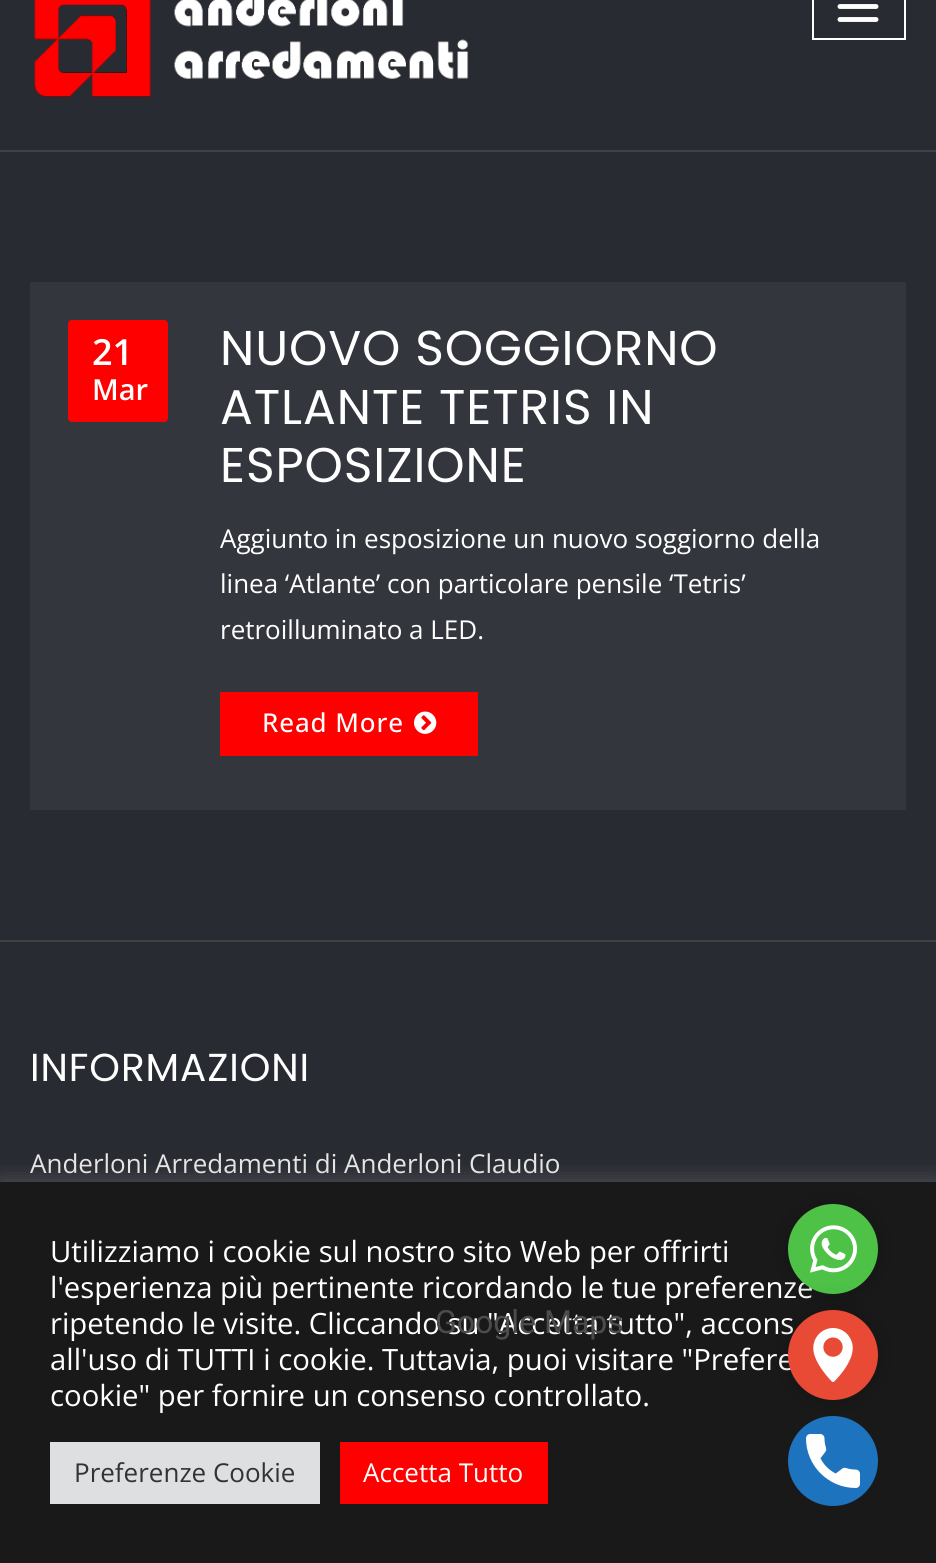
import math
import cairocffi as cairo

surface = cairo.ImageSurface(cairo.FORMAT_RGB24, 936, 1563)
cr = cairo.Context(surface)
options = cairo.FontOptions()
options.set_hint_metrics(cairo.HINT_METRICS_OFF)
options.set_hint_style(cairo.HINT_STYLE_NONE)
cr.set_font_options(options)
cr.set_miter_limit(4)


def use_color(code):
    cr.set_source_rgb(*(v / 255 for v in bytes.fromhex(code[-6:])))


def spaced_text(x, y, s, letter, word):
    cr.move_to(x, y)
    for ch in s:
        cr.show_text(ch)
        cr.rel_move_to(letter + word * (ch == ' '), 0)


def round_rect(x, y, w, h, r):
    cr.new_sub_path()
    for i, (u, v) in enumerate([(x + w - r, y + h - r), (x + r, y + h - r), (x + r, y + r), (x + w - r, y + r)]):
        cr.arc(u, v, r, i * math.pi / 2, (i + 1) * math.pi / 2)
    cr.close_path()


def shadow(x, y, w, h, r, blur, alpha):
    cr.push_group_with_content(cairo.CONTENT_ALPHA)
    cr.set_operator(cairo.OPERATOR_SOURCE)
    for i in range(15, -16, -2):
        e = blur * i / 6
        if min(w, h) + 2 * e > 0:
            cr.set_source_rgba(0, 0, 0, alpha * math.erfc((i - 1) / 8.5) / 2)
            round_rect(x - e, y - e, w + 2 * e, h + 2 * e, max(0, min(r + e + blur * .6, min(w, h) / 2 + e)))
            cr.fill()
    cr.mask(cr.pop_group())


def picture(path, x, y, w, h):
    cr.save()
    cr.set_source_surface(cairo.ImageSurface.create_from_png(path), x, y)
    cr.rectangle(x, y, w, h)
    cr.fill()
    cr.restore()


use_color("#292b32")
cr.paint()
picture("img1.png", 34, 0, 435, 98)
cr.rectangle(813, -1, 92, 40)
use_color("#ffffff")
cr.stroke()
cr.new_path()
cr.move_to(840, -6.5)
cr.line_to(876, -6.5)
cr.move_to(840, 6.5)
cr.line_to(876, 6.5)
cr.move_to(840, 19.5)
cr.line_to(876, 19.5)
cr.set_line_width(4.9)
cr.set_line_cap(cairo.LINE_CAP_ROUND)
cr.stroke()
use_color("#424242")
cr.rectangle(0, 150, 936, 2)
cr.fill()
cr.rectangle(0, 940, 936, 2)
cr.fill()
use_color("#34363e")
cr.rectangle(30, 282, 876, 528)
cr.fill()
use_color("#ff0000")
round_rect(68, 320, 100, 102, 4)
cr.fill()
cr.select_font_face("Open Sans SemiBold")
cr.set_font_size(36)
use_color("#ffffff")
cr.move_to(92, 365)
cr.show_text("21")
cr.set_font_size(29)
cr.move_to(92, 400)
cr.show_text("Mar")
cr.select_font_face("Poppins")
cr.set_font_size(48.75)
spaced_text(220, 365, "NUOVO SOGGIORNO", 0.9, 0)
spaced_text(220, 424, "ATLANTE TETRIS IN", 0.9, 0)
spaced_text(220, 482, "ESPOSIZIONE", 0.9, 0)
cr.select_font_face("Open Sans")
cr.set_font_size(26)
cr.move_to(220, 548)
cr.show_text("Aggiunto in esposizione un nuovo soggiorno della")
cr.move_to(220, 593)
cr.show_text("linea ‘Atlante’ con particolare pensile ‘Tetris’")
cr.move_to(220, 639)
cr.show_text("retroilluminato a LED.")
use_color("#ff0000")
cr.rectangle(220, 692, 258, 64)
cr.fill()
cr.select_font_face("Open Sans Medium")
use_color("#ffffff")
spaced_text(262, 732, "Read More", 0.9, 0)
picture("img2.png", 414, 711, 23, 23)
cr.select_font_face("Poppins")
cr.set_font_size(39)
spaced_text(30, 1081, "INFORMAZIONI", 0.9, 0)
cr.select_font_face("Open Sans")
cr.set_font_size(26)
use_color("#e5e5e5")
cr.move_to(30, 1173)
cr.show_text("Anderloni Arredamenti di Anderloni Claudio")
use_color("#acabab")
shadow(0, 1180, 936, 382, 0, 10, 0.3)
use_color("#191919")
cr.rectangle(0, 1182, 936, 381)
cr.fill()
cr.set_font_size(29.3)
use_color("#ffffff")
cr.move_to(50, 1262)
cr.show_text("Utilizziamo i cookie sul nostro sito Web per offrirti")
cr.move_to(50, 1298)
cr.show_text("l'esperienza più pertinente ricordando le tue preferenze")
cr.move_to(50, 1334)
cr.show_text("ripetendo le visite. Cliccando su \"Accetta tutto\", accons")
cr.move_to(50, 1370)
cr.show_text("all'uso di TUTTI i cookie. Tuttavia, puoi visitare \"Prefere")
cr.move_to(50, 1406)
cr.show_text("cookie\" per fornire un consenso controllato.")
use_color("#dedfe0")
cr.rectangle(50, 1442, 270, 62)
cr.fill()
cr.set_font_size(26)
use_color("#333333")
cr.move_to(74, 1482)
cr.show_text("Preferenze Cookie")
use_color("#ff0000")
cr.rectangle(340, 1442, 208, 62)
cr.fill()
use_color("#ffffff")
cr.move_to(363, 1482)
cr.show_text("Accetta Tutto")
use_color("#000000")
shadow(788, 1204, 90, 90, 45, 12, 0.2)
use_color("#4dc247")
cr.arc(833, 1249, 45, 0, 2 * math.pi)
cr.fill()
use_color("#000000")
shadow(788, 1310, 90, 90, 45, 12, 0.2)
use_color("#e84a35")
cr.arc(833, 1355, 45, 0, 2 * math.pi)
cr.fill()
cr.select_font_face("Roboto")
cr.set_font_size(32)
use_color("#4c4c4c")
cr.move_to(435, 1333)
cr.show_text("Google Maps")
picture("img3.png", 813, 1328, 40, 54)
picture("img4.png", 810, 1225, 48, 48)
use_color("#1e73be")
cr.arc(833, 1461, 45, 0, 2 * math.pi)
cr.fill()
picture("img5.png", 806, 1434, 54, 54)
surface.write_to_png("result.png")
